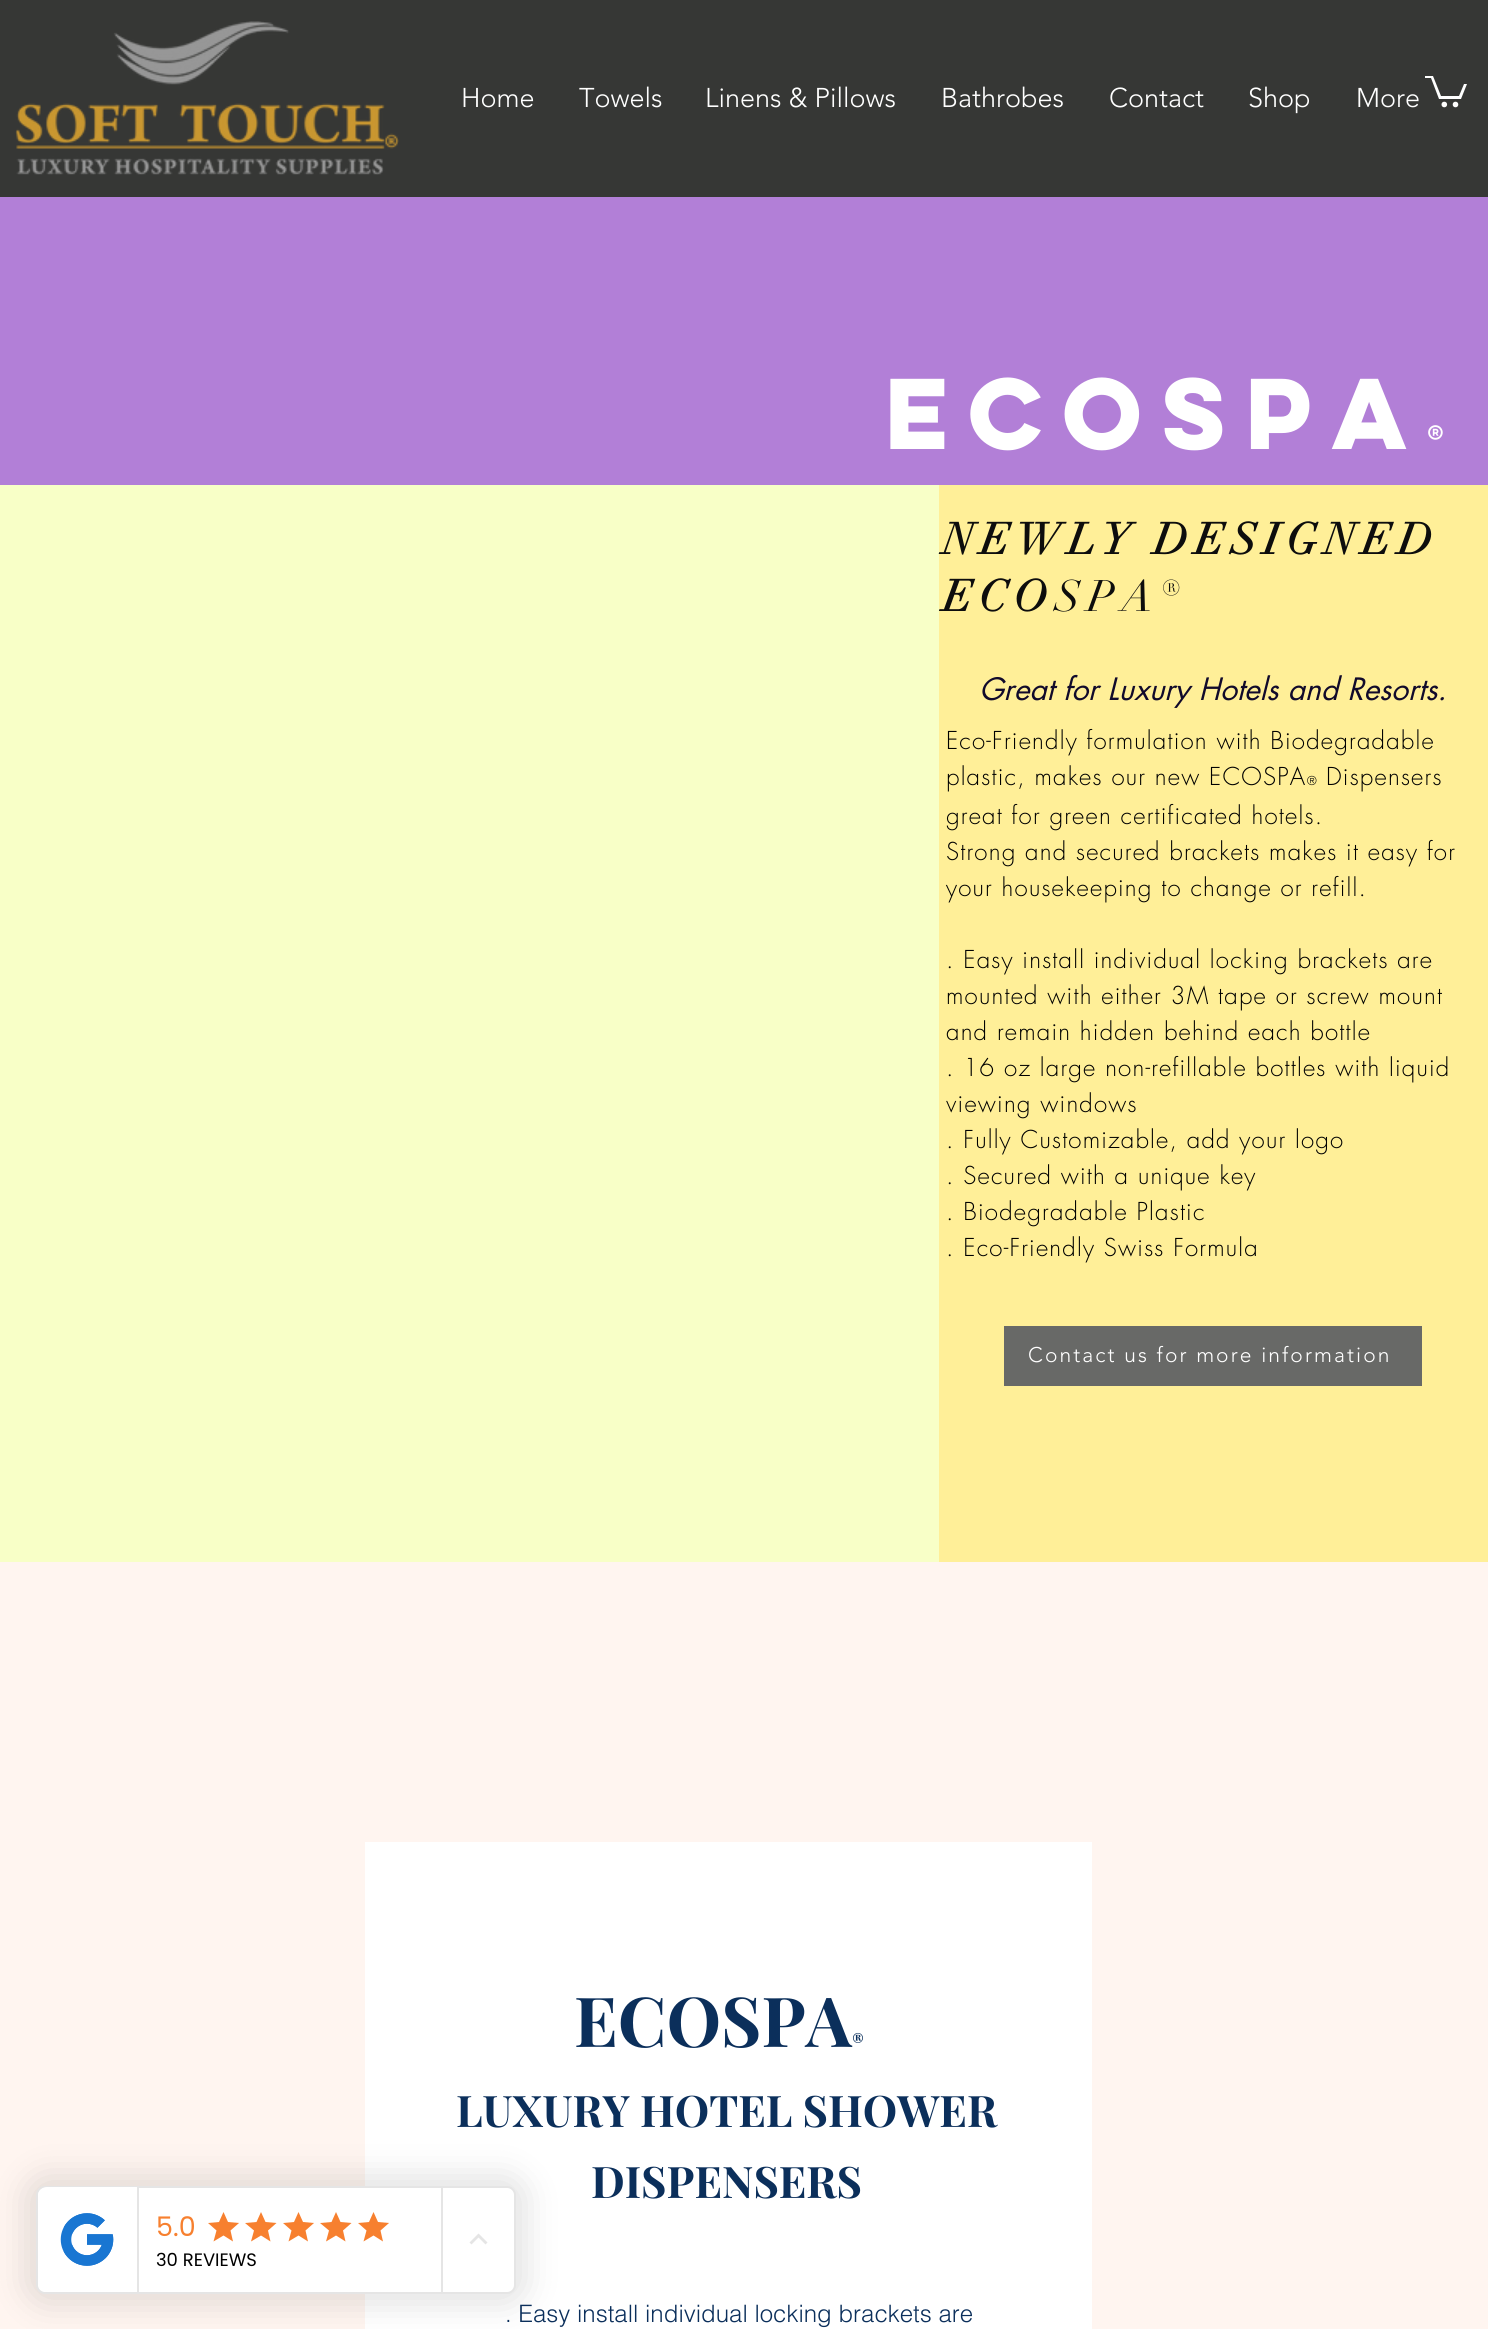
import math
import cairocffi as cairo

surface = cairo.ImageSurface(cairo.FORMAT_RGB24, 1488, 2329)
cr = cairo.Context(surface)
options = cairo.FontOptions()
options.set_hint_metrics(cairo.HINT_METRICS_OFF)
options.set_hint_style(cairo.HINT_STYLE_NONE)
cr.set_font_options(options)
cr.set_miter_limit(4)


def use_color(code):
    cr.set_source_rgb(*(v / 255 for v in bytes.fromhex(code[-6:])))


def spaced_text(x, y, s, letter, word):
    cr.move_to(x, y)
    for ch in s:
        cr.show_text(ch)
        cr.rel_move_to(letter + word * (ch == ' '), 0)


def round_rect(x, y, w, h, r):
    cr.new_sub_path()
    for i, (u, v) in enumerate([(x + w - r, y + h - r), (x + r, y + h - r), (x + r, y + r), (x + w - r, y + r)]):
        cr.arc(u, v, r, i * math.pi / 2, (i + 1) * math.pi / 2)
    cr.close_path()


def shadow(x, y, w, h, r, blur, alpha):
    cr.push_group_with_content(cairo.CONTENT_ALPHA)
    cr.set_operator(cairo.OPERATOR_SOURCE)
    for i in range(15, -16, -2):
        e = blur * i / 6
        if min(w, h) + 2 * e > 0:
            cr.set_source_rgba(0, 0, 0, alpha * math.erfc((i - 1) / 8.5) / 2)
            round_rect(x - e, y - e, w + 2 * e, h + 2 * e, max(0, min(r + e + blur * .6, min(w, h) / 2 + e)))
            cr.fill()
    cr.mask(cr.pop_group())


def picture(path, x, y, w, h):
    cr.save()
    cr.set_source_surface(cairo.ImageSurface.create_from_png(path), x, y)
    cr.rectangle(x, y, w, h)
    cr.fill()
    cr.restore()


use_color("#b27fd7")
cr.paint()
use_color("#fff5f0")
cr.rectangle(0, 1562, 1488, 767)
cr.fill()
use_color("#ffffff")
cr.rectangle(365, 1842, 727, 487)
cr.fill()
use_color("#000000")
shadow(27, 2177, 498, 126, 18, 18, 0.12)
use_color("#ffffff")
round_rect(37, 2187, 478, 106, 8)
cr.fill_preserve()
use_color("#e5e5e5")
cr.stroke()
use_color("#ffffff")
cr.new_path()
cr.move_to(47, 2187)
cr.line_to(138, 2187)
cr.line_to(138, 2292)
cr.line_to(47, 2292)
cr.curve_to(42, 2292, 38, 2288, 38, 2283)
cr.line_to(38, 2196)
cr.curve_to(38, 2191, 42, 2187, 47, 2187)
cr.close_path()
cr.fill()
use_color("#e5e5e5")
cr.rectangle(137, 2187, 2, 105)
cr.fill()
picture("img1.png", 60, 2213, 54, 53)
cr.rectangle(441, 2187, 2, 105)
cr.fill()
cr.select_font_face("Poppins")
cr.set_font_size(27)
use_color("#f7802f")
cr.move_to(156, 2236)
cr.show_text("5.0")
cr.new_path()
cr.move_to(223.5, 2235.5)
cr.line_to(233, 2241.5)
cr.line_to(230.5, 2230.5)
cr.line_to(239, 2223)
cr.line_to(228, 2222)
cr.line_to(223.5, 2212)
cr.line_to(219, 2222)
cr.line_to(208, 2223)
cr.line_to(216.5, 2230.5)
cr.line_to(213.5, 2241.5)
cr.close_path()
cr.fill()
cr.new_path()
cr.move_to(261, 2235.5)
cr.line_to(270.5, 2241.5)
cr.line_to(268, 2230.5)
cr.line_to(276.5, 2223)
cr.line_to(265.5, 2222)
cr.line_to(261, 2212)
cr.line_to(256.5, 2222)
cr.line_to(245, 2223)
cr.line_to(254, 2230.5)
cr.line_to(251, 2241.5)
cr.close_path()
cr.fill()
cr.new_path()
cr.move_to(298.5, 2235.5)
cr.line_to(308, 2241.5)
cr.line_to(305.5, 2230.5)
cr.line_to(314, 2223)
cr.line_to(303, 2222)
cr.line_to(298.5, 2212)
cr.line_to(294, 2222)
cr.line_to(283, 2223)
cr.line_to(291.5, 2230.5)
cr.line_to(288.5, 2241.5)
cr.close_path()
cr.fill()
cr.new_path()
cr.move_to(336, 2235.5)
cr.line_to(345.5, 2241.5)
cr.line_to(343, 2230.5)
cr.line_to(351.5, 2223)
cr.line_to(340.5, 2222)
cr.line_to(336, 2212)
cr.line_to(331.5, 2222)
cr.line_to(320, 2223)
cr.line_to(329, 2230.5)
cr.line_to(326, 2241.5)
cr.close_path()
cr.fill()
cr.new_path()
cr.move_to(373.5, 2235.5)
cr.line_to(383, 2241.5)
cr.line_to(380.5, 2230.5)
cr.line_to(389, 2223)
cr.line_to(378, 2222)
cr.line_to(373.5, 2212)
cr.line_to(369, 2222)
cr.line_to(358, 2223)
cr.line_to(366.5, 2230.5)
cr.line_to(363.5, 2241.5)
cr.close_path()
cr.fill()
cr.set_font_size(18)
use_color("#000000")
cr.move_to(156, 2266)
cr.show_text("30 REVIEWS")
use_color("#e5e5e5")
cr.new_path()
cr.move_to(471.5, 2244.5)
cr.line_to(478.5, 2237.5)
cr.line_to(485.5, 2244.5)
cr.line_to(487.5, 2242.5)
cr.line_to(478.5, 2233.5)
cr.line_to(469.5, 2242.5)
cr.close_path()
cr.fill()
use_color("#363735")
cr.rectangle(0, 0, 1488, 197)
cr.fill()
picture("img2.png", 15, 21, 384, 154)
cr.select_font_face("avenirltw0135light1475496 Light")
cr.set_font_size(27)
use_color("#ffffff")
cr.move_to(461, 107)
cr.show_text("Home")
cr.move_to(579, 107)
cr.show_text("Towels")
cr.move_to(705, 107)
cr.show_text("Linens & Pillows")
cr.move_to(941, 107)
cr.show_text("Bathrobes")
cr.move_to(1109, 107)
cr.show_text("Contact")
cr.move_to(1248, 107)
cr.show_text("Shop")
cr.move_to(1356, 107)
cr.show_text("More")
cr.new_path()
cr.move_to(1467, 84)
cr.line_to(1461, 99)
cr.line_to(1439, 99)
cr.line_to(1431, 78)
cr.line_to(1425, 78)
cr.line_to(1425, 76)
cr.line_to(1433, 76)
cr.line_to(1441, 96)
cr.line_to(1459, 96)
cr.line_to(1464, 84)
cr.fill()
cr.arc(1455.5, 104.5, 2.8, 0, 2 * math.pi)
cr.fill()
cr.arc(1444.3, 104.5, 2.8, 0, 2 * math.pi)
cr.fill()
cr.select_font_face("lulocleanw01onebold", cairo.FONT_SLANT_NORMAL, cairo.FONT_WEIGHT_BOLD)
cr.set_font_size(90)
cr.move_to(885, 449)
cr.show_text("ECOSPA")
cr.set_font_size(30)
cr.move_to(1427, 449)
cr.show_text("®")
use_color("#f8ffc7")
cr.rectangle(0, 485, 939, 1077)
cr.fill()
use_color("#ffef98")
cr.rectangle(939, 485, 549, 1077)
cr.fill()
cr.select_font_face("didot", cairo.FONT_SLANT_NORMAL, cairo.FONT_WEIGHT_BOLD)
cr.set_font_size(43.5)
use_color("#0d0d0d")
spaced_text(943, 554, "NEWLY DESIGNED", 6.5, 0)
spaced_text(943, 611, "ECO", 6.5, 0)
cr.select_font_face("didot")
spaced_text(1055, 611, "SPA®", 6.5, 0)
cr.select_font_face("futura", cairo.FONT_SLANT_ITALIC)
cr.set_font_size(30)
use_color("#110a2b")
cr.move_to(979, 700)
cr.show_text("Great for Luxury Hotels and Resorts.")
cr.select_font_face("futura Light")
cr.set_font_size(24)
use_color("#000000")
spaced_text(946, 749, "Eco-Friendly formulation with Biodegradable", 1.2, 0)
spaced_text(946, 785, "plastic, makes our new ECOSPA", 1.2, 0)
cr.set_font_size(12)
spaced_text(1307, 785, "®", 1.2, 0)
cr.set_font_size(24)
spaced_text(1326, 785, "Dispensers", 1.2, 0)
spaced_text(946, 824, "great for green certificated hotels.", 1.2, 0)
spaced_text(946, 860, "Strong and secured brackets makes it easy for", 1.2, 0)
spaced_text(946, 896, "your housekeeping to change or refill.", 1.2, 0)
spaced_text(946, 968, ". Easy install individual locking brackets are", 1.2, 0)
spaced_text(946, 1004, "mounted with either 3M tape or screw mount", 1.2, 0)
spaced_text(946, 1040, "and remain hidden behind each bottle", 1.2, 0)
spaced_text(946, 1076, ". 16 oz large non-refillable bottles with liquid", 1.2, 0)
spaced_text(946, 1112, "viewing windows", 1.2, 0)
spaced_text(946, 1148, ". Fully Customizable, add your logo", 1.2, 0)
spaced_text(946, 1184, ". Secured with a unique key", 1.2, 0)
spaced_text(946, 1220, ". Biodegradable Plastic", 1.2, 0)
spaced_text(946, 1256, ". Eco-Friendly Swiss Formula", 1.2, 0)
use_color("#686967")
cr.rectangle(1004, 1326, 418, 60)
cr.fill()
cr.select_font_face("avenirltw0135light1475496 Light")
cr.set_font_size(21)
use_color("#ffffff")
spaced_text(1028, 1362, "Contact us for more information", 2.1, 0)
cr.select_font_face("Playfair Display", cairo.FONT_SLANT_NORMAL, cairo.FONT_WEIGHT_BOLD)
cr.set_font_size(69)
use_color("#0b2f5b")
cr.move_to(574, 2047)
cr.show_text("ECOSPA")
cr.set_font_size(18)
cr.move_to(852, 2047)
cr.show_text("®")
cr.set_font_size(43.5)
cr.move_to(456, 2127)
cr.show_text("LUXURY HOTEL SHOWER")
cr.move_to(591, 2198)
cr.show_text("DISPENSERS")
cr.select_font_face("helvetica Light")
cr.set_font_size(24)
cr.move_to(505, 2322)
cr.show_text(". Easy install individual locking brackets are")
surface.write_to_png("result.png")
